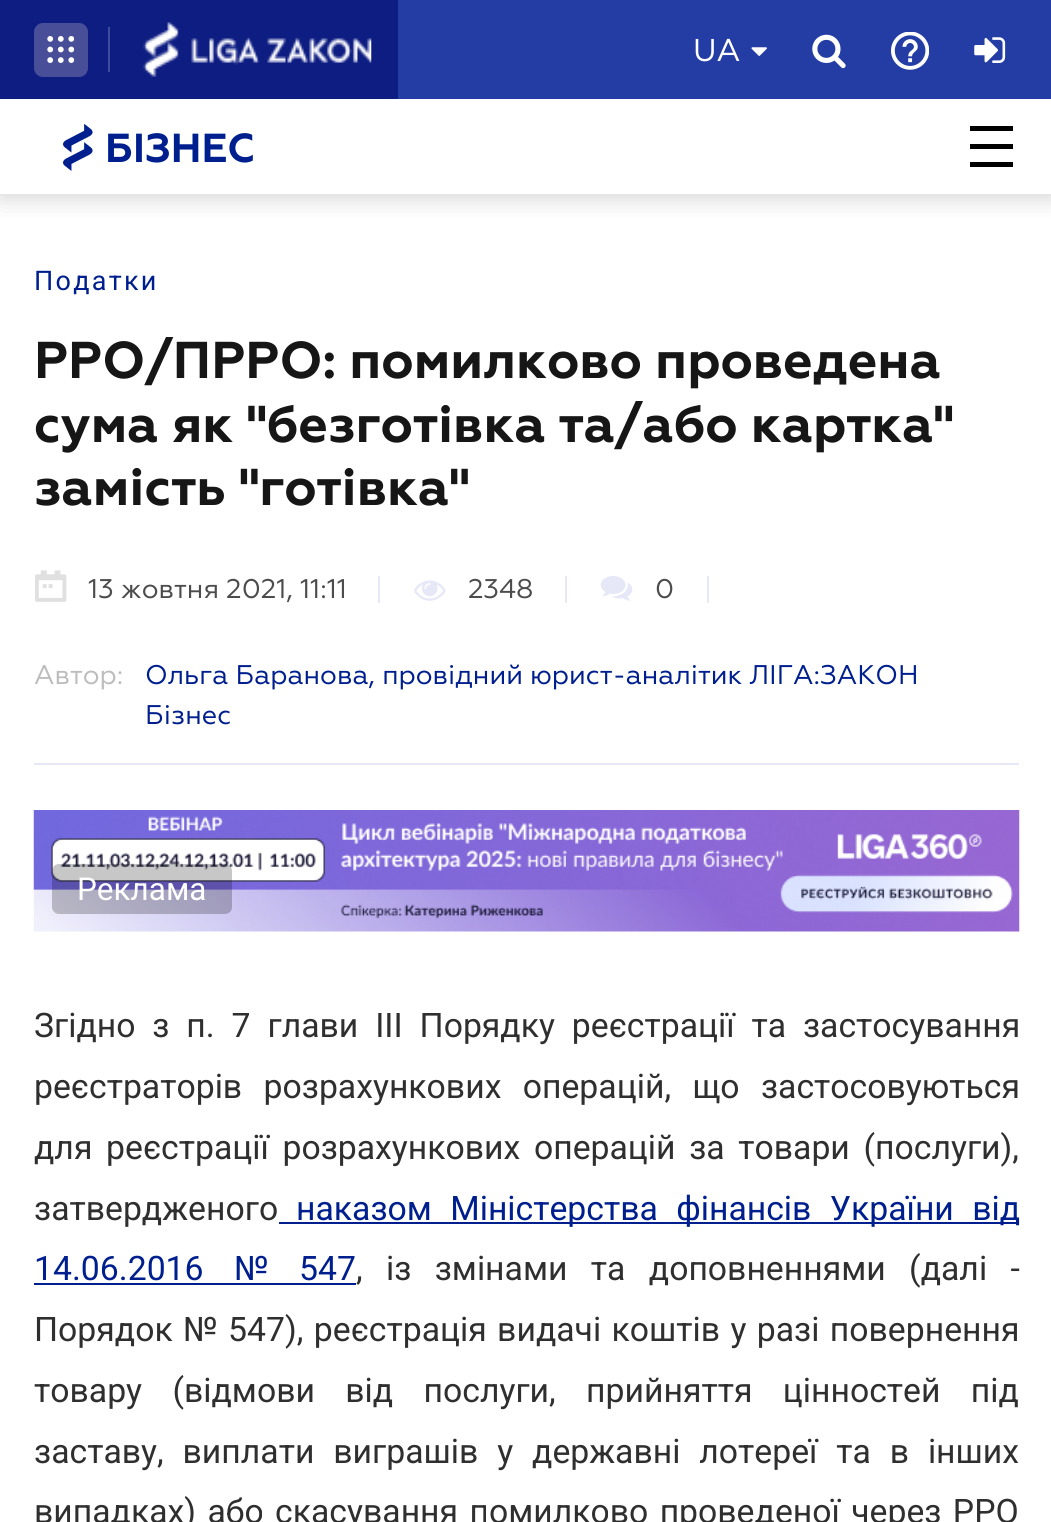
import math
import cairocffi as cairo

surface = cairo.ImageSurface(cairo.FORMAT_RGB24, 1051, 1522)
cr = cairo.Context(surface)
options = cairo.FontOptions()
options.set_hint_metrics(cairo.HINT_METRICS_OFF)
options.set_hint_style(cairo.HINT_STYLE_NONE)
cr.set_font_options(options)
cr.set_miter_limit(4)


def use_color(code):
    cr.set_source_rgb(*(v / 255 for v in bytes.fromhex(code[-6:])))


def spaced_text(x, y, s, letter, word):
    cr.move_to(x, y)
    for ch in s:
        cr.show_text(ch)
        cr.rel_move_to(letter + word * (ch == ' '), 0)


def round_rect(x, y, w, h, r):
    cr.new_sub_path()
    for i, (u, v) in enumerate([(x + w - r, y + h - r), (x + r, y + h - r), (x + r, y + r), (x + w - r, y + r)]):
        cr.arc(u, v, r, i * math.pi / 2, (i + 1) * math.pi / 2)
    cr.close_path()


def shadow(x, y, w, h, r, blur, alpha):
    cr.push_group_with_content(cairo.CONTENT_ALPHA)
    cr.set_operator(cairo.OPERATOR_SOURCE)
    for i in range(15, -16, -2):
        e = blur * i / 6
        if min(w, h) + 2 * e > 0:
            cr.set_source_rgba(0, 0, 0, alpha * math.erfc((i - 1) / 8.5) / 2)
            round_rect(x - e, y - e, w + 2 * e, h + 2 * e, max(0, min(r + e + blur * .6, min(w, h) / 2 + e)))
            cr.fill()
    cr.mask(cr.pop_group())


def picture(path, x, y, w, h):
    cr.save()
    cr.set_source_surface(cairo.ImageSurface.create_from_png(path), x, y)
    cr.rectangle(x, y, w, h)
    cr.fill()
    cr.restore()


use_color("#ffffff")
cr.paint()
use_color("#000000")
shadow(0, 104, 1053, 96, 0, 11, 0.15)
use_color("#243da4")
cr.rectangle(398, 0, 653, 99)
cr.fill()
use_color("#0e1d82")
cr.rectangle(0, 0, 398, 99)
cr.fill()
use_color("#484f98")
round_rect(34, 23, 54, 54, 9)
cr.fill()
picture("img1.png", 47, 36, 27, 27)
use_color("#3e4a9b")
cr.rectangle(108, 27, 2, 45)
cr.fill()
picture("img2.png", 143, 22, 229, 55)
cr.select_font_face("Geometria")
cr.set_font_size(31.5)
use_color("#ffffff")
cr.move_to(693, 61)
cr.show_text("UA")
picture("img3.png", 751, 47, 16, 9)
picture("img4.png", 812, 34, 34, 35)
picture("img5.png", 891, 32, 38, 38)
picture("img6.png", 974, 37, 32, 26)
cr.rectangle(0, 99, 1051, 95)
cr.fill()
use_color("#e6e6e6")
cr.rectangle(0, 194, 1051, 2)
cr.fill()
picture("img7.png", 63, 124, 30, 47)
cr.select_font_face("Geometria", cairo.FONT_SLANT_NORMAL, cairo.FONT_WEIGHT_BOLD)
cr.set_font_size(40.5)
use_color("#001f8e")
cr.move_to(105, 162)
cr.show_text("БІЗНЕС")
use_color("#000000")
cr.rectangle(970, 126, 43, 5)
cr.fill()
cr.rectangle(970, 144, 43, 5)
cr.fill()
cr.rectangle(970, 162, 43, 5)
cr.fill()
use_color("#e6e8f7")
cr.rectangle(34, 763, 985, 2)
cr.fill()
cr.select_font_face("Roboto")
cr.set_font_size(27)
use_color("#001f8e")
spaced_text(34, 290, "Податки", 2.25, 0)
cr.select_font_face("Geometria", cairo.FONT_SLANT_NORMAL, cairo.FONT_WEIGHT_BOLD)
cr.set_font_size(51.75)
use_color("#161616")
cr.move_to(34, 378)
cr.show_text("РРО/ПРРО: помилково проведена")
cr.move_to(34, 442)
cr.show_text("сума як \"безготівка та/або картка\"")
cr.move_to(34, 505)
cr.show_text("замість \"готівка\"")
picture("img8.png", 35, 570, 32, 32)
cr.select_font_face("Geometria")
cr.set_font_size(27)
use_color("#4c4c4c")
cr.move_to(88, 598)
cr.show_text("13 жовтня 2021, 11:11")
use_color("#e6e8f7")
cr.rectangle(378, 576, 2, 27)
cr.fill()
picture("img9.png", 414, 580, 32, 21)
use_color("#4c4c4c")
cr.move_to(468, 598)
cr.show_text("2348")
use_color("#e6e8f7")
cr.rectangle(565, 576, 2, 27)
cr.fill()
picture("img10.png", 600, 576, 33, 25)
use_color("#4c4c4c")
cr.move_to(655, 598)
cr.show_text("0")
use_color("#e6e8f7")
cr.rectangle(707, 576, 2, 27)
cr.fill()
use_color("#bdbdbd")
cr.move_to(34, 684)
cr.show_text("Автор:")
use_color("#001f8e")
cr.move_to(145, 684)
cr.show_text("Ольга Баранова, провідний юрист-аналітик ЛІГА:ЗАКОН")
cr.move_to(145, 724)
cr.show_text("Бізнес")
picture("img11.png", 33, 810, 987, 122)
cr.set_source_rgba(0, 0, 0, 0.22)
round_rect(52, 864, 180, 50, 7)
cr.fill()
cr.select_font_face("Roboto")
cr.set_font_size(31.5)
use_color("#ffffff")
cr.move_to(77, 900)
cr.show_text("Реклама")
cr.set_font_size(33.75)
use_color("#2f2f2f")
spaced_text(34, 1037, "Згідно з п. 7 глави III Порядку реєстрації та застосування", 0, 8.5)
spaced_text(34, 1098, "реєстраторів розрахункових операцій, що застосовуються", 0, 13)
spaced_text(34, 1159, "для реєстрації розрахункових операцій за товари (послуги),", 0, 5.25)
cr.move_to(34, 1220)
cr.show_text("затвердженого")
use_color("#001f8e")
cr.rectangle(279, 1222, 740, 2)
cr.fill()
spaced_text(296, 1220, "наказом Міністерства фінансів України від", 0, 10)
spaced_text(34, 1280, "14.06.2016 № 547", 0, 22)
cr.rectangle(34, 1283, 322, 2)
cr.fill()
use_color("#2f2f2f")
spaced_text(356, 1280, ", із змінами та доповненнями (далі -", 0, 15)
spaced_text(34, 1341, "Порядок № 547), реєстрація видачі коштів у разі повернення", 0, 2)
spaced_text(34, 1402, "товару (відмови від послуги, прийняття цінностей під", 0, 22)
spaced_text(34, 1463, "заставу, виплати виграшів у державні лотереї та в інших", 0, 10.5)
spaced_text(34, 1523, "випадках) або скасування помилково проведеної через РРО", 0, 3)
surface.write_to_png("result.png")
